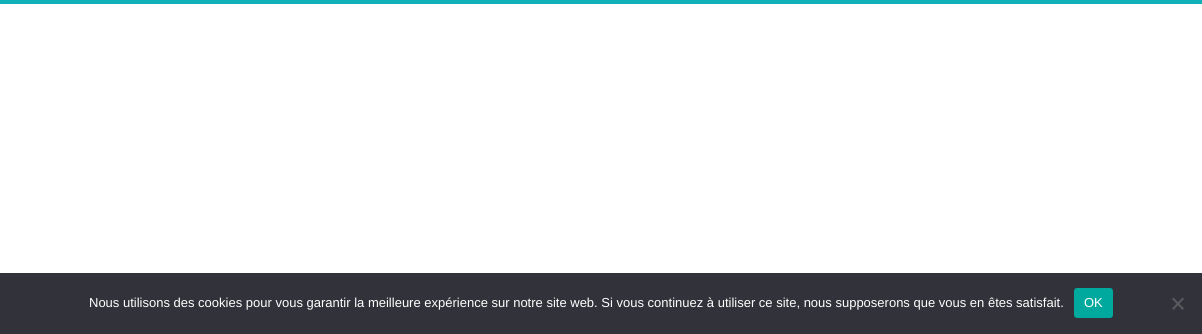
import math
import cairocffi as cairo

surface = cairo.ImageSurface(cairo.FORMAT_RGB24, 1202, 334)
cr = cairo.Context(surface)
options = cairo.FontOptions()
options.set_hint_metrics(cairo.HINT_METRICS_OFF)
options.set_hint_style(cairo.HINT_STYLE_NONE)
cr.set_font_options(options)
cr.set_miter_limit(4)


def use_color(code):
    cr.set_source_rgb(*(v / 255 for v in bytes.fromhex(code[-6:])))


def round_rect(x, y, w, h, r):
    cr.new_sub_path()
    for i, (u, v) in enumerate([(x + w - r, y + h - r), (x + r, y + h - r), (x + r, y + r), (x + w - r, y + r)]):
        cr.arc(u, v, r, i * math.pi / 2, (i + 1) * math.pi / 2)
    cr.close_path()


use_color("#ffffff")
cr.paint()
use_color("#10b0b8")
cr.rectangle(0, 0, 1202, 4)
cr.fill()
use_color("#32323a")
cr.rectangle(0, 273, 1202, 61)
cr.fill()
cr.select_font_face("Liberation Sans")
cr.set_font_size(13)
use_color("#ffffff")
cr.move_to(89, 307)
cr.show_text("Nous utilisons des cookies pour vous garantir la meilleure expérience sur notre site web. Si vous continuez à utiliser ce site, nous supposerons que vous en êtes satisfait.")
use_color("#00a99d")
round_rect(1074, 288, 39, 30, 3)
cr.fill()
use_color("#ffffff")
cr.move_to(1084, 307)
cr.show_text("OK")
use_color("#59595d")
cr.new_path()
cr.move_to(1182.5, 297.5)
cr.line_to(1184, 299)
cr.line_to(1173.5, 310)
cr.line_to(1172, 308.5)
cr.close_path()
cr.fill()
cr.new_path()
cr.move_to(1172, 299)
cr.line_to(1173.5, 297.5)
cr.line_to(1184, 308.5)
cr.line_to(1182.5, 310)
cr.close_path()
cr.fill()
surface.write_to_png("result.png")
